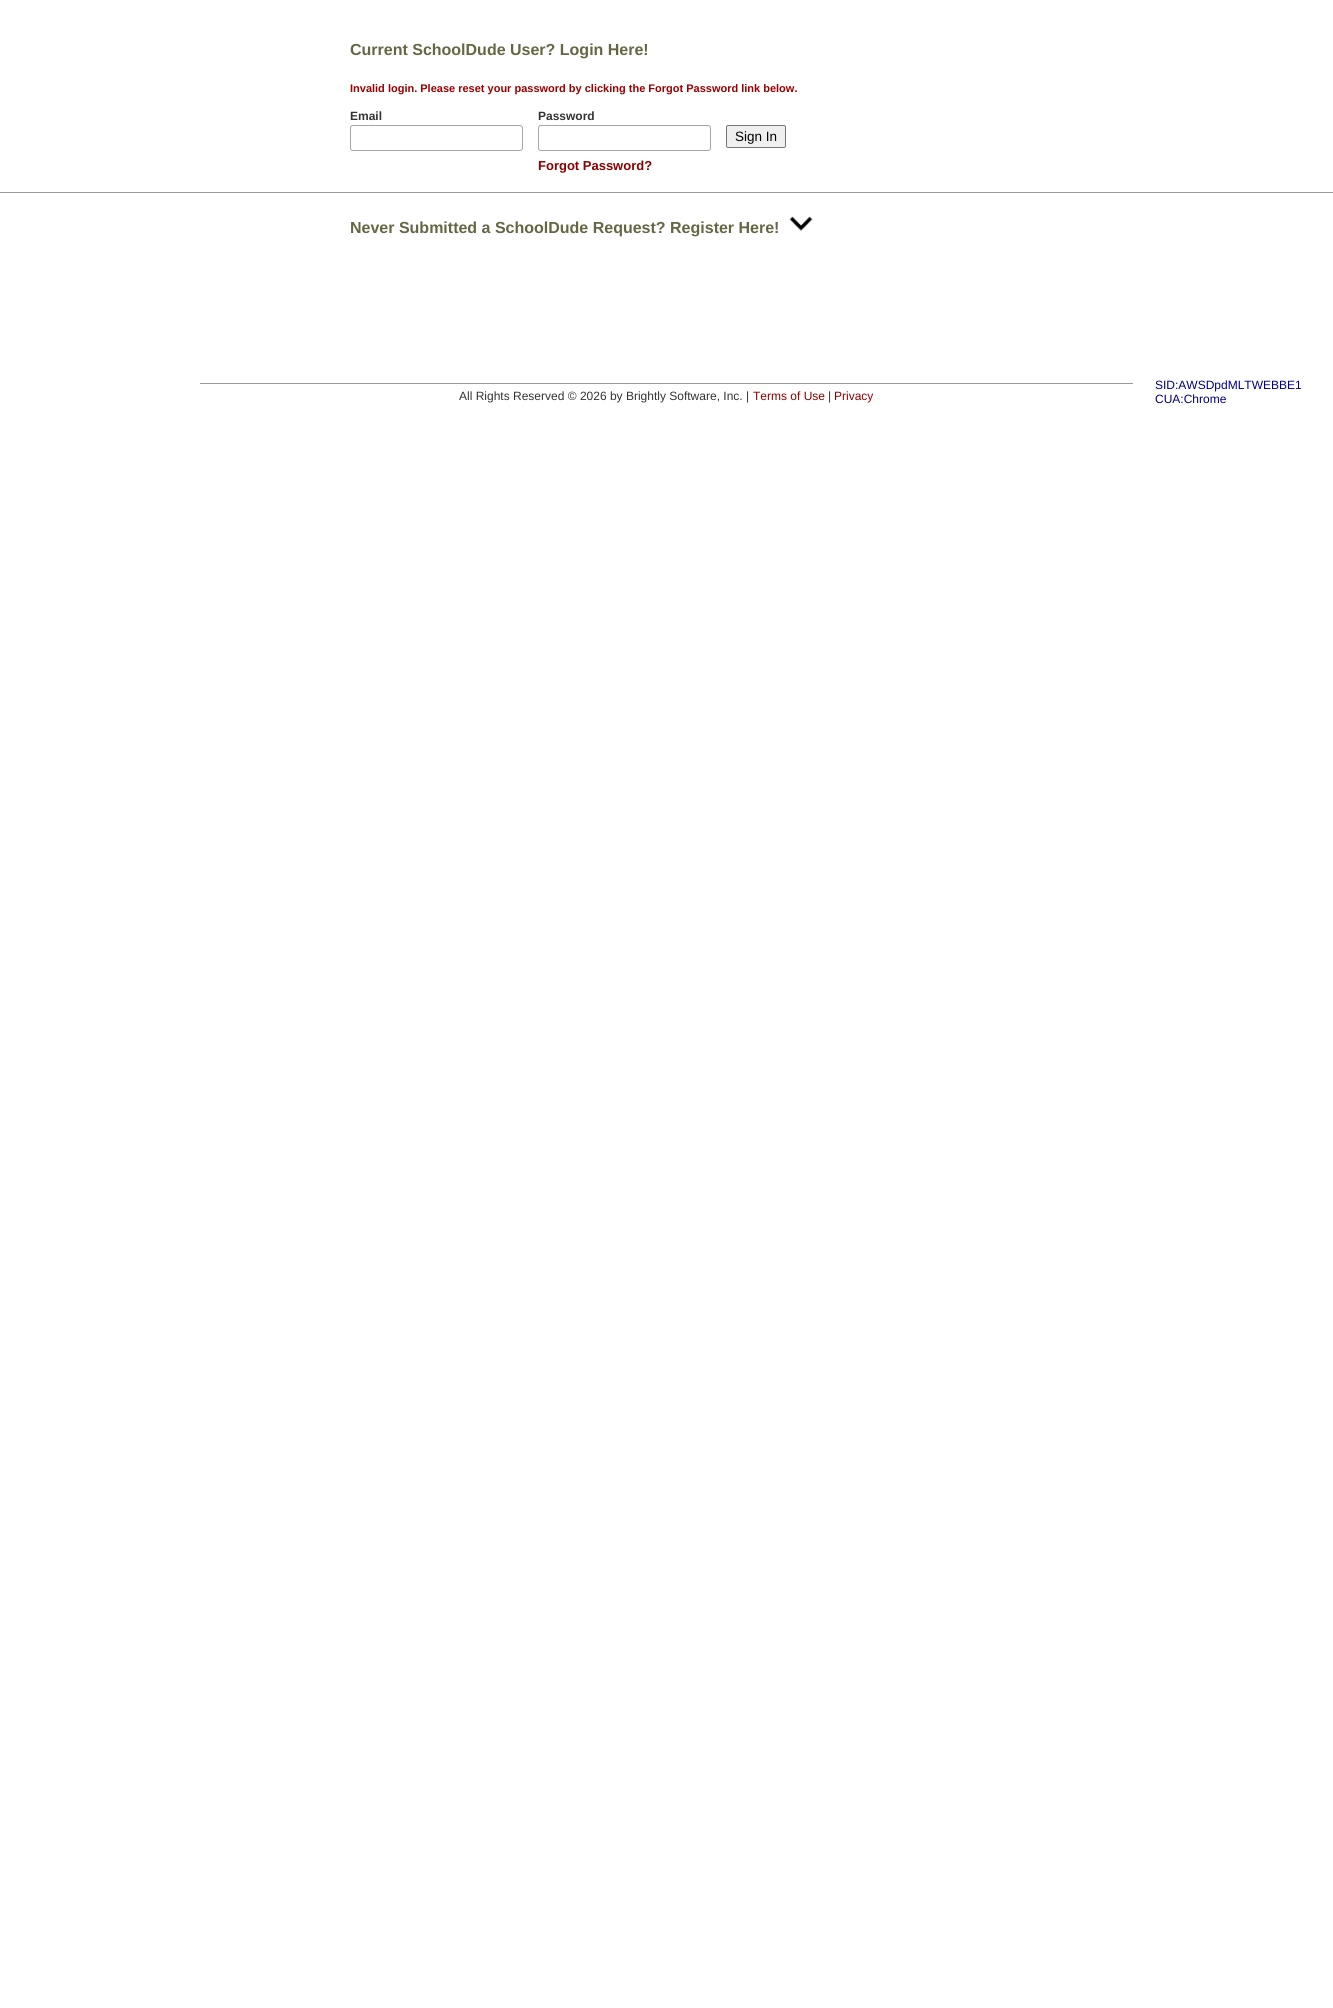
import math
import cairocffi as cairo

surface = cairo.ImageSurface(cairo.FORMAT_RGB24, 1333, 2008)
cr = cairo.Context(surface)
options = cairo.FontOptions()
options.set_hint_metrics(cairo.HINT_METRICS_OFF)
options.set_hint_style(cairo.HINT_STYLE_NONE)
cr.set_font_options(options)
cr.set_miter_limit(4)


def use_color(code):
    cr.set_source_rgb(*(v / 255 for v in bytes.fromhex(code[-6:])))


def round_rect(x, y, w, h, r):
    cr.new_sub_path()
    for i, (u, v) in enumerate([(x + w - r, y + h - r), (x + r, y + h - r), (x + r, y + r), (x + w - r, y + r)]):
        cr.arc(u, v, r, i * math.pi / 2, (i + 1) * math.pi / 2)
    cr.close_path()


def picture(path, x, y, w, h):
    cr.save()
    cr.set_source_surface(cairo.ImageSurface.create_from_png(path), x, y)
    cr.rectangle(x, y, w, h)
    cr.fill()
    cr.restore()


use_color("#ffffff")
cr.paint()
cr.select_font_face("Liberation Sans", cairo.FONT_SLANT_NORMAL, cairo.FONT_WEIGHT_BOLD)
cr.set_font_size(16)
use_color("#666644")
cr.move_to(350, 55)
cr.show_text("Current SchoolDude User? Login Here!")
cr.set_font_size(11)
use_color("#990000")
cr.move_to(350, 92)
cr.show_text("Invalid login. Please reset your password by clicking the Forgot Password link below.")
cr.set_font_size(12)
use_color("#333333")
cr.move_to(350, 120)
cr.show_text("Email")
round_rect(350.5, 125.5, 172, 25, 2.5)
use_color("#a6a6a6")
cr.set_line_width(1)
cr.stroke()
use_color("#333333")
cr.move_to(538, 120)
cr.show_text("Password")
round_rect(538.5, 125.5, 172, 25, 2.5)
use_color("#a6a6a6")
cr.stroke()
cr.set_font_size(13)
use_color("#8b0000")
cr.move_to(538, 170)
cr.show_text("Forgot Password?")
use_color("#efefef")
round_rect(726.5, 125.5, 59, 22, 1.5)
cr.fill_preserve()
use_color("#767676")
cr.stroke()
cr.select_font_face("Liberation Sans")
cr.set_font_size(13.5)
use_color("#000000")
cr.move_to(735, 141)
cr.show_text("Sign In")
use_color("#999999")
cr.rectangle(0, 192, 1333, 1)
cr.fill()
cr.select_font_face("Liberation Sans", cairo.FONT_SLANT_NORMAL, cairo.FONT_WEIGHT_BOLD)
cr.set_font_size(16)
use_color("#666644")
cr.move_to(350, 233)
cr.show_text("Never Submitted a SchoolDude Request? Register Here!")
picture("img1.png", 789, 216, 24, 15)
use_color("#999999")
cr.rectangle(200, 383, 933, 1)
cr.fill()
cr.select_font_face("Liberation Sans")
cr.set_font_size(12)
use_color("#333333")
cr.move_to(459, 400)
cr.show_text("All Rights Reserved © 2026 by Brightly Software, Inc. |")
use_color("#8b0000")
cr.move_to(753, 400)
cr.show_text("Terms of Use")
use_color("#333333")
cr.move_to(828, 400)
cr.show_text("|")
use_color("#8b0000")
cr.move_to(834, 400)
cr.show_text("Privacy")
use_color("#000080")
cr.move_to(1155, 389)
cr.show_text("SID:AWSDpdMLTWEBBE1")
cr.move_to(1155, 403)
cr.show_text("CUA:Chrome")
surface.write_to_png("result.png")
